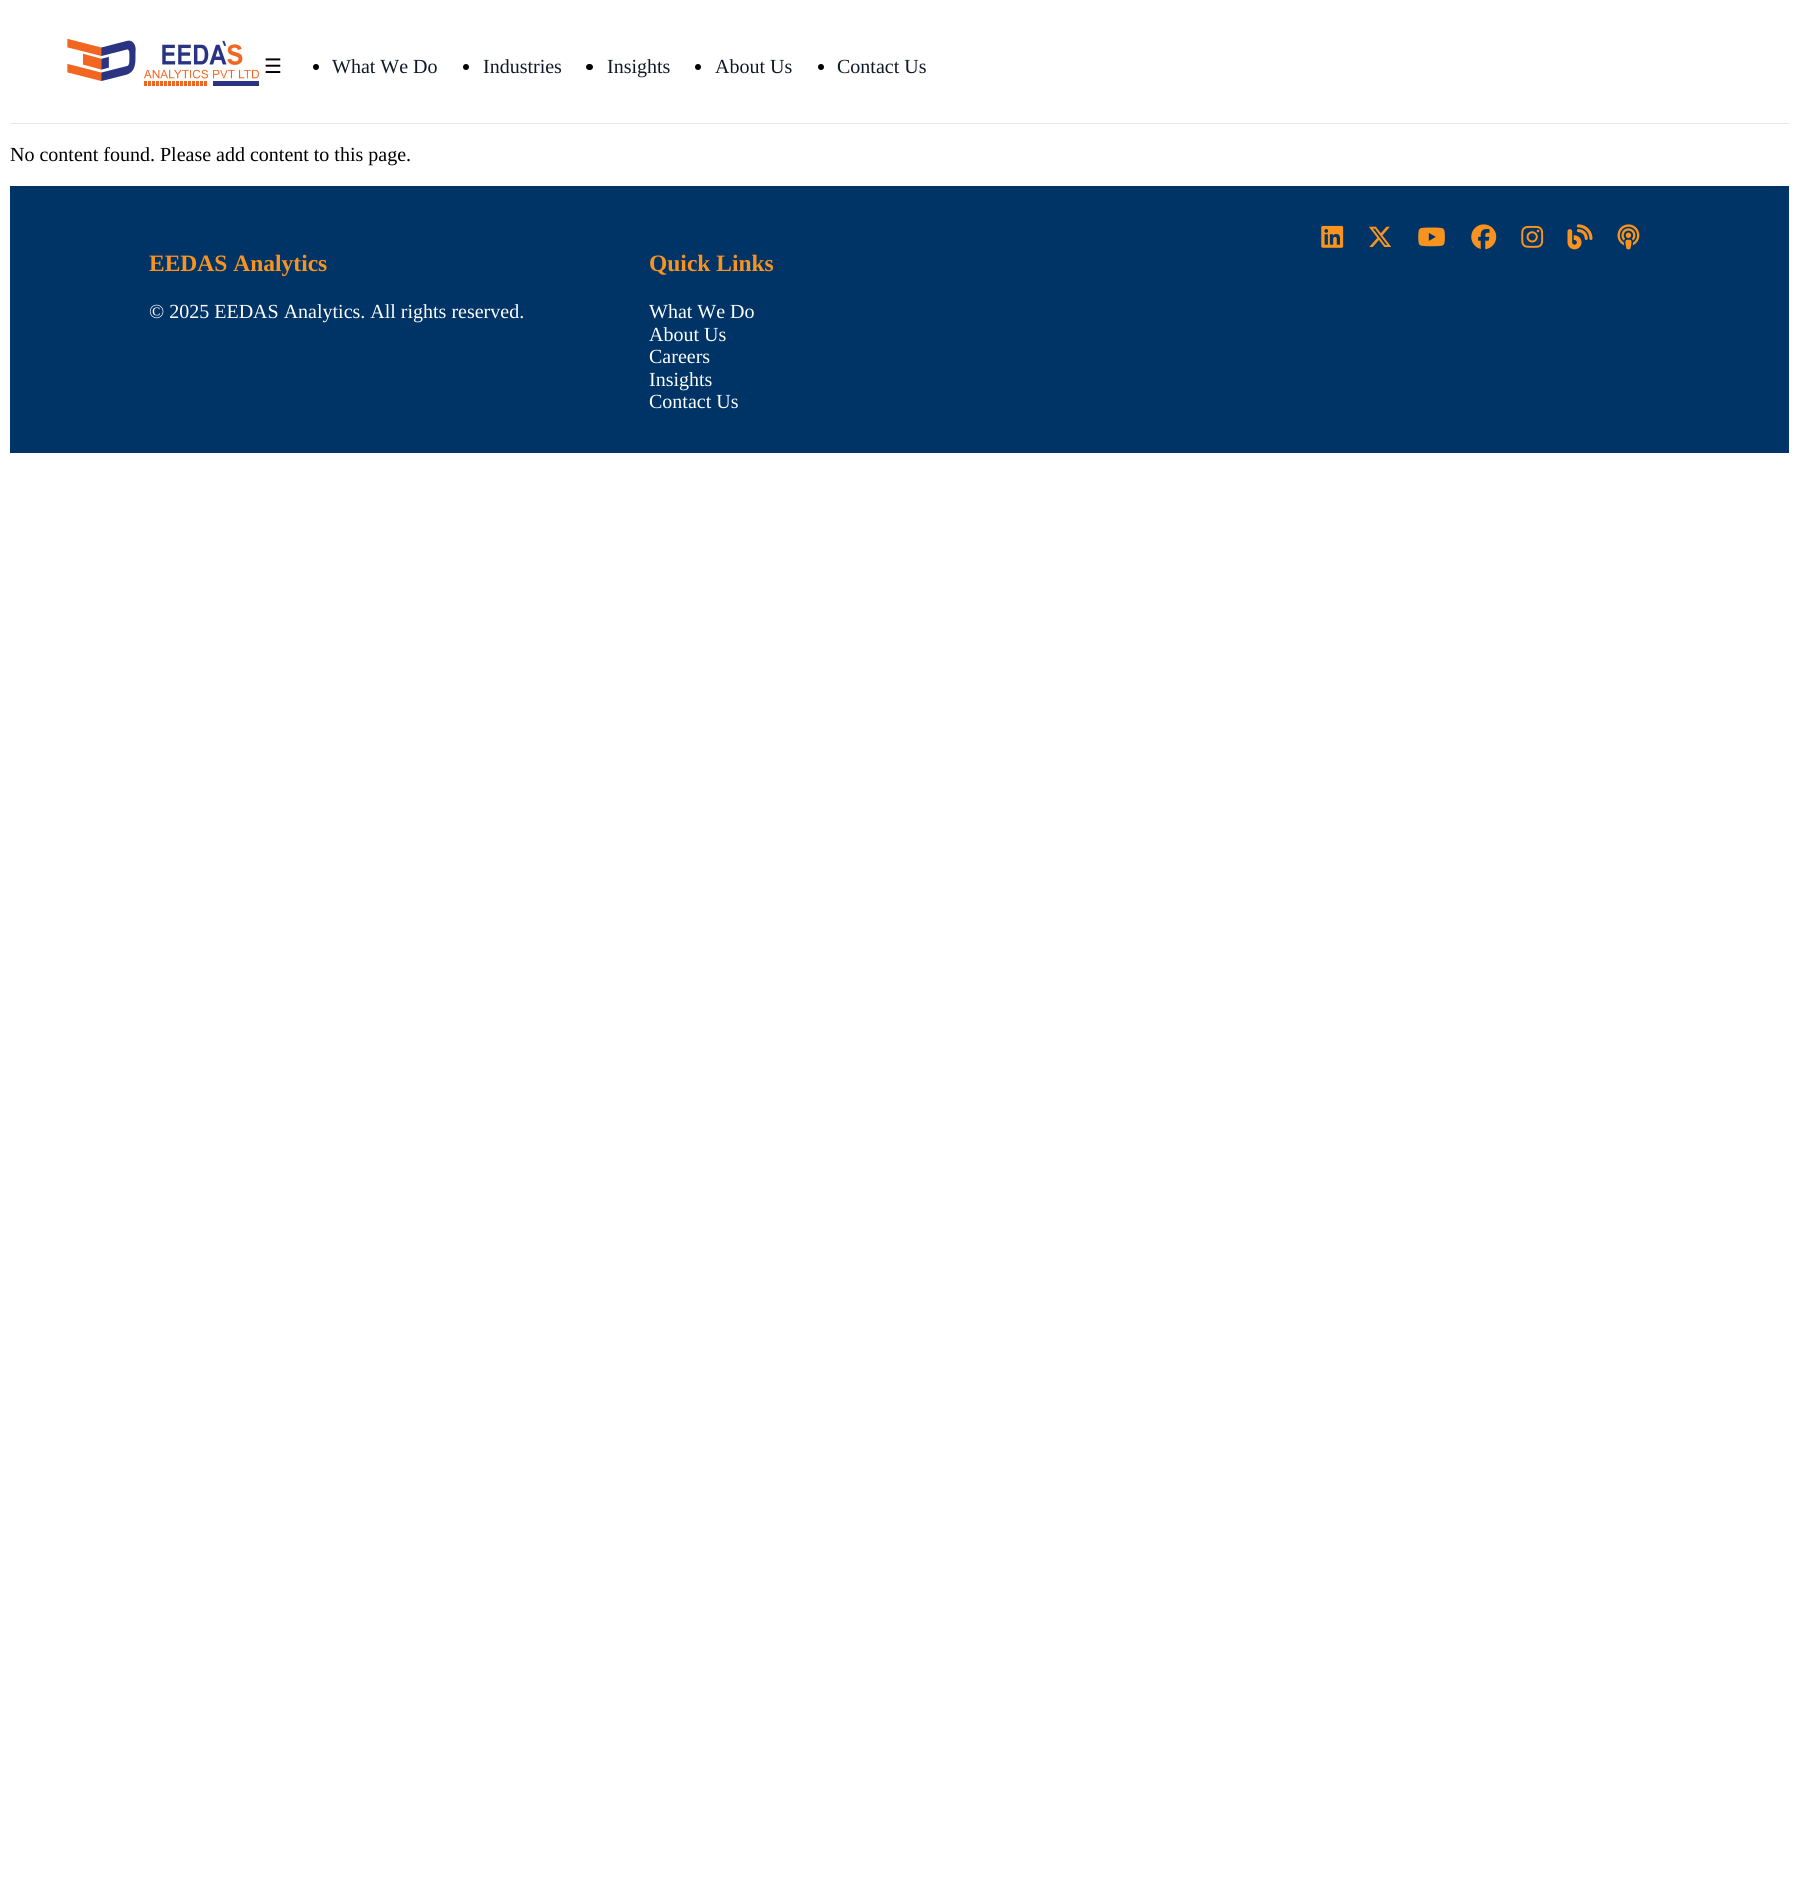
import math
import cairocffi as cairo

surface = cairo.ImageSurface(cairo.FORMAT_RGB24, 1798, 1901)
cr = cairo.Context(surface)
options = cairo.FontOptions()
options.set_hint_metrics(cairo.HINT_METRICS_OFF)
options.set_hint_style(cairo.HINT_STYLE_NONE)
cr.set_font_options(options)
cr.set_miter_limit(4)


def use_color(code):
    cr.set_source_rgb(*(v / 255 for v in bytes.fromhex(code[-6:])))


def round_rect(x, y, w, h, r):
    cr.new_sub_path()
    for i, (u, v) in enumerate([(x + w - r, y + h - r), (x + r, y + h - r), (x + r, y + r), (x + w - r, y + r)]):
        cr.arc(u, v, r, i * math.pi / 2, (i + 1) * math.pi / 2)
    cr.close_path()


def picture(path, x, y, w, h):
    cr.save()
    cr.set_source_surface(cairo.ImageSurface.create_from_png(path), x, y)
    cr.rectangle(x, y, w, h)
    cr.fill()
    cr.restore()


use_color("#ffffff")
cr.paint()
use_color("#e5e7eb")
cr.rectangle(10, 123, 1779, 1)
cr.fill()
picture("img1.png", 67, 38, 192, 48)
cr.select_font_face("DejaVu Sans")
cr.set_font_size(20)
use_color("#000000")
cr.move_to(264, 73)
cr.show_text("☰")
cr.new_path()
cr.arc(316, 67, 3, 0, 2 * math.pi)
cr.fill()
cr.select_font_face("Liberation Serif")
use_color("#111827")
cr.move_to(332, 73)
cr.show_text("What We Do")
use_color("#000000")
cr.new_path()
cr.arc(466, 67, 3, 0, 2 * math.pi)
cr.fill()
use_color("#111827")
cr.move_to(483, 73)
cr.show_text("Industries")
use_color("#000000")
round_rect(586, 64, 7, 6, 3)
cr.fill()
use_color("#111827")
cr.move_to(607, 73)
cr.show_text("Insights")
use_color("#000000")
cr.new_path()
cr.arc(698, 67, 3, 0, 2 * math.pi)
cr.fill()
use_color("#111827")
cr.move_to(715, 73)
cr.show_text("About Us")
use_color("#000000")
cr.new_path()
cr.arc(821, 67, 3, 0, 2 * math.pi)
cr.fill()
use_color("#111827")
cr.move_to(837, 73)
cr.show_text("Contact Us")
use_color("#000000")
cr.move_to(10, 161)
cr.show_text("No content found. Please add content to this page.")
use_color("#003366")
cr.rectangle(10, 186, 1779, 267)
cr.fill()
picture("img2.png", 1321, 225, 23, 23)
picture("img3.png", 1369, 226, 23, 21)
picture("img4.png", 1418, 227, 27, 20)
picture("img5.png", 1471, 224, 26, 26)
picture("img6.png", 1521, 225, 23, 23)
picture("img7.png", 1567, 224, 26, 26)
picture("img8.png", 1617, 224, 23, 26)
cr.select_font_face("Liberation Serif", cairo.FONT_SLANT_NORMAL, cairo.FONT_WEIGHT_BOLD)
cr.set_font_size(23.5)
use_color("#f7931e")
cr.move_to(149, 271)
cr.show_text("EEDAS Analytics")
cr.select_font_face("Liberation Serif")
cr.set_font_size(20)
use_color("#ffffff")
cr.move_to(149, 318)
cr.show_text("© 2025 EEDAS Analytics. All rights reserved.")
cr.select_font_face("Liberation Serif", cairo.FONT_SLANT_NORMAL, cairo.FONT_WEIGHT_BOLD)
cr.set_font_size(23.5)
use_color("#f7931e")
cr.move_to(649, 271)
cr.show_text("Quick Links")
cr.select_font_face("Liberation Serif")
cr.set_font_size(20)
use_color("#ffffff")
cr.move_to(649, 318)
cr.show_text("What We Do")
cr.move_to(649, 341)
cr.show_text("About Us")
cr.move_to(649, 363)
cr.show_text("Careers")
cr.move_to(649, 386)
cr.show_text("Insights")
cr.move_to(649, 408)
cr.show_text("Contact Us")
surface.write_to_png("result.png")
